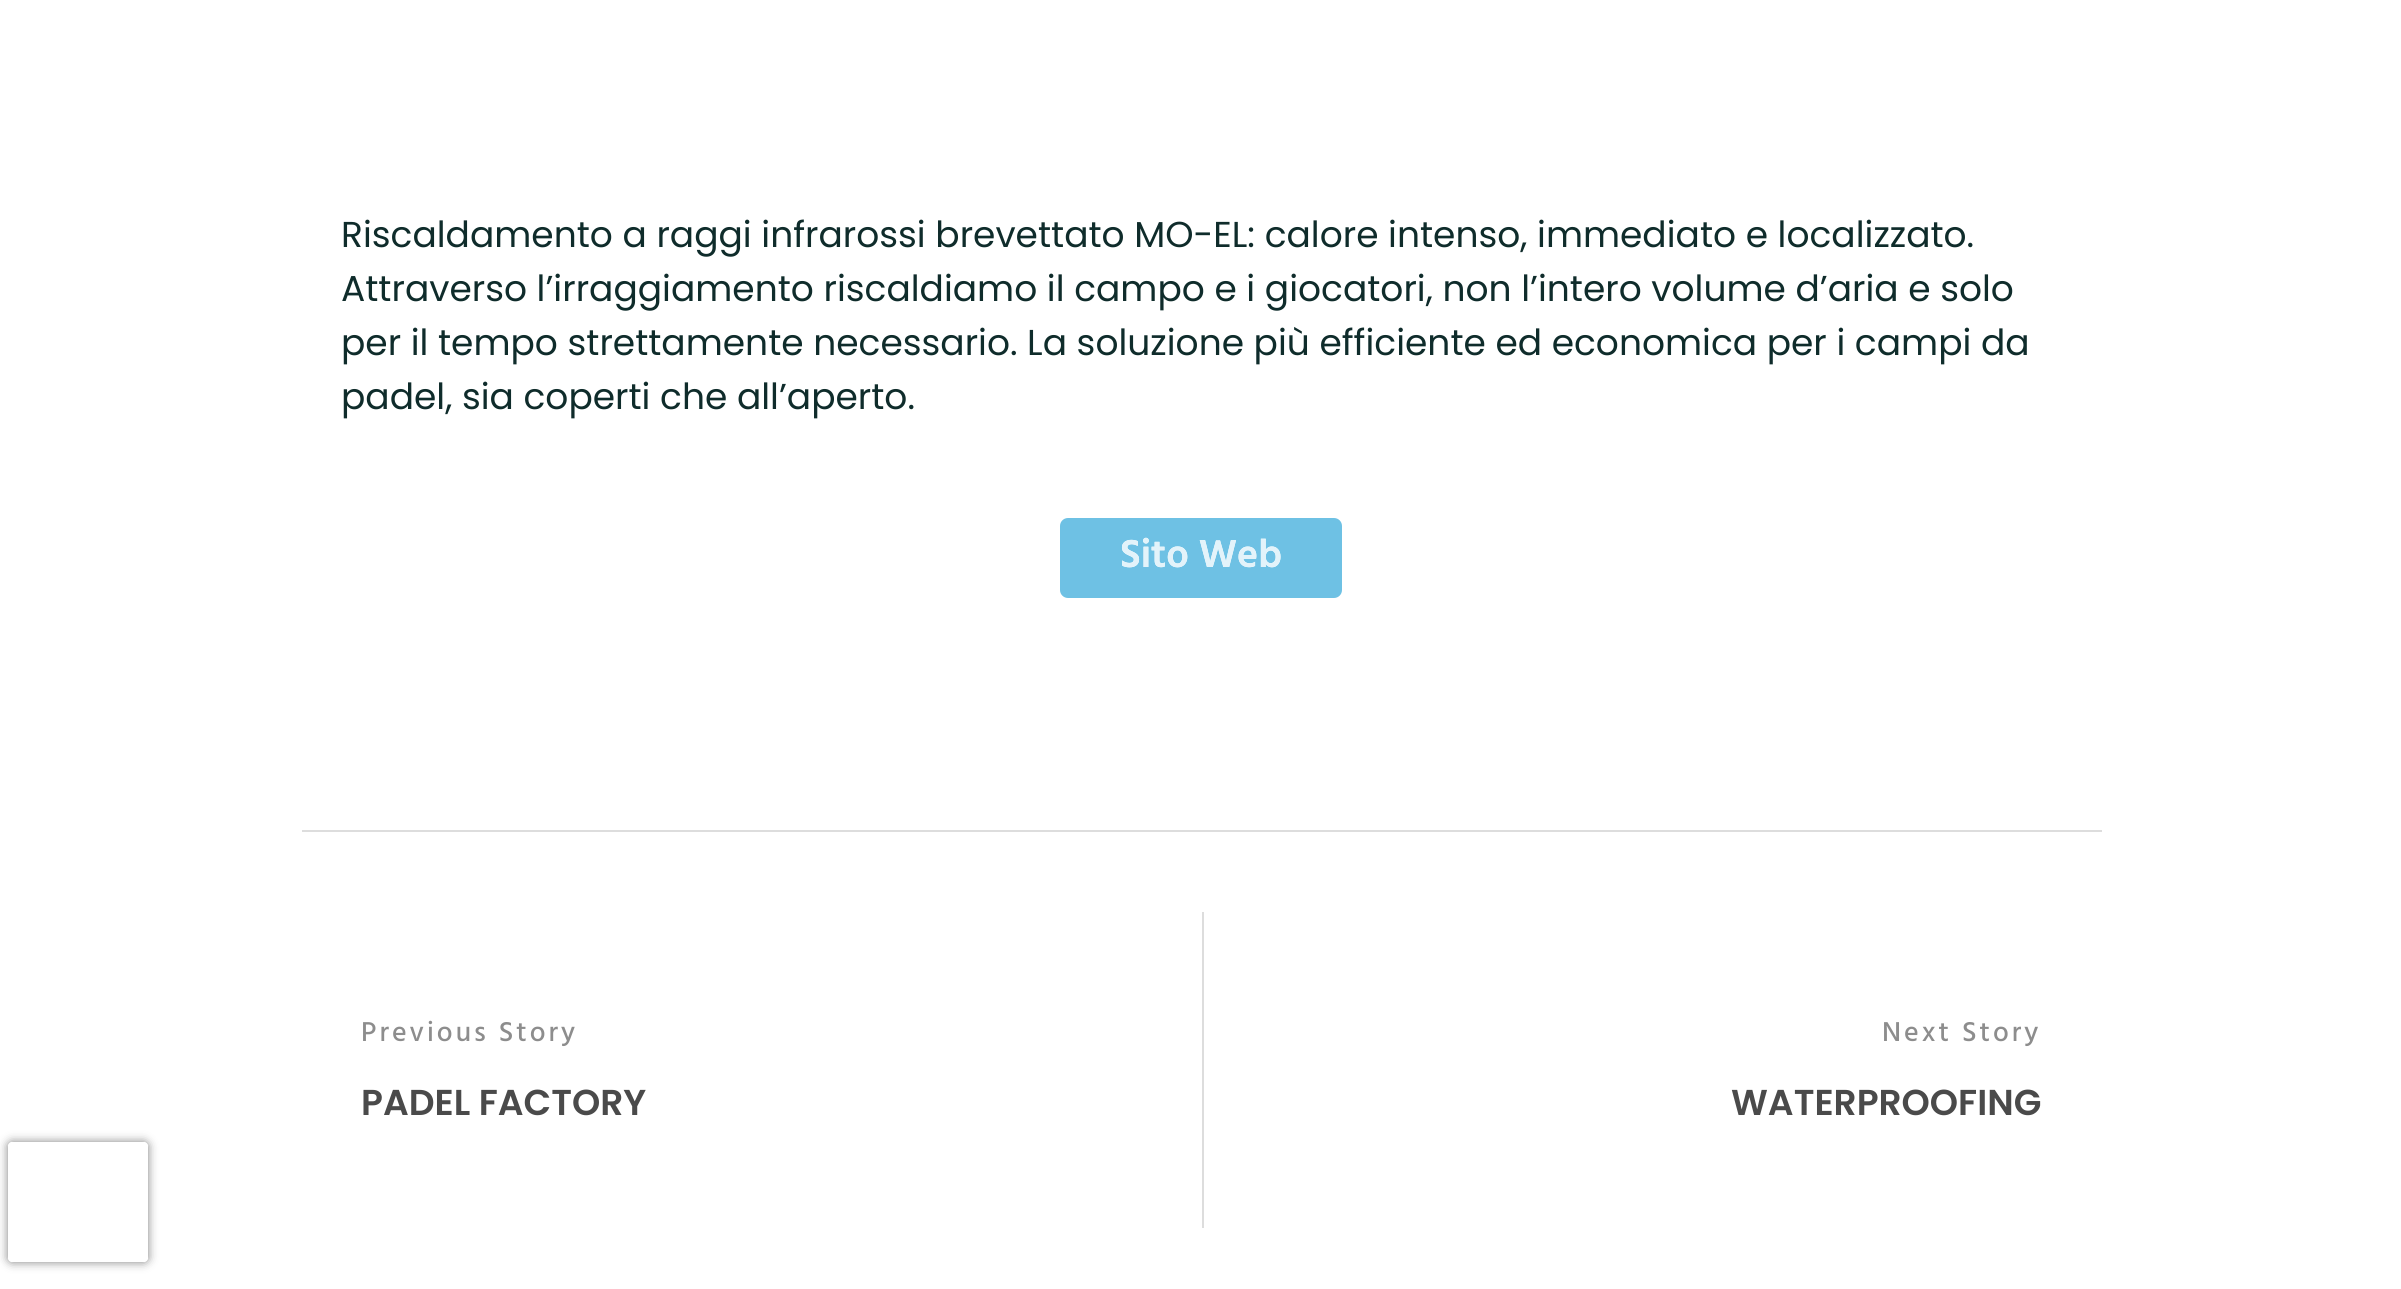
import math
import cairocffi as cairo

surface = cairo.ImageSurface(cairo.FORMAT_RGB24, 2401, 1289)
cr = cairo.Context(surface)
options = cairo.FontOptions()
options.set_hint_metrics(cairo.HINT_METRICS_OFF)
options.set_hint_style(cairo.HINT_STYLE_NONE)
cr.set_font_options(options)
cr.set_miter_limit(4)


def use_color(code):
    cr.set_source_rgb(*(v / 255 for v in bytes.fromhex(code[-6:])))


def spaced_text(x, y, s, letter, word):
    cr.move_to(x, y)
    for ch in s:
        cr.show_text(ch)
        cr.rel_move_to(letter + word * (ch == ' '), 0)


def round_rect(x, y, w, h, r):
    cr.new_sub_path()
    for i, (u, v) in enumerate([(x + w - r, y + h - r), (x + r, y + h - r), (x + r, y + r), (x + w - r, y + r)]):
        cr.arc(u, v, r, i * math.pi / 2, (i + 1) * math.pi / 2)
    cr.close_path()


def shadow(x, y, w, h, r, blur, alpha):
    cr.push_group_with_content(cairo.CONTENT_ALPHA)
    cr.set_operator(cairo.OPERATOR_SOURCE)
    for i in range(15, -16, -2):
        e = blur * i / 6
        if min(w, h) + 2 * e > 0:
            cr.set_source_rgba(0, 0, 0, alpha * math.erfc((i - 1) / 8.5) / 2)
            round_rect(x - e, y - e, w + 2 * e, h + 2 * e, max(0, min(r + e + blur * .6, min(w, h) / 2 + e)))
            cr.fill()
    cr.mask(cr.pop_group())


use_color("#ffffff")
cr.paint()
cr.select_font_face("Poppins")
cr.set_font_size(36)
use_color("#0f2c2b")
cr.move_to(341, 247)
cr.show_text("Riscaldamento a raggi infrarossi brevettato MO-EL: calore intenso, immediato e localizzato.")
cr.move_to(341, 301)
cr.show_text("Attraverso l’irraggiamento riscaldiamo il campo e i giocatori, non l’intero volume d’aria e solo")
cr.move_to(341, 355)
cr.show_text("per il tempo strettamente necessario. La soluzione più efficiente ed economica per i campi da")
cr.move_to(341, 409)
cr.show_text("padel, sia coperti che all’aperto.")
use_color("#6ec1e4")
round_rect(1060, 518, 282, 80, 8)
cr.fill()
cr.select_font_face("Hind SemiBold")
cr.set_font_size(40)
use_color("#ffffff")
cr.move_to(1120, 567)
cr.show_text("Sito Web")
use_color("#e3f3fa")
cr.move_to(1120, 567)
cr.show_text("Sito Web")
use_color("#dddddd")
cr.rectangle(302, 830, 1800, 2)
cr.fill()
cr.select_font_face("Hind Medium")
cr.set_font_size(28)
use_color("#8d8d8d")
spaced_text(361, 1041, "Previous Story", 3, 0)
cr.select_font_face("Poppins SemiBold")
cr.set_font_size(36)
use_color("#4a4a4a")
cr.move_to(361, 1115)
cr.show_text("PADEL FACTORY")
use_color("#dddddd")
cr.rectangle(1202, 912, 2, 316)
cr.fill()
cr.select_font_face("Hind Medium")
cr.set_font_size(28)
use_color("#8d8d8d")
spaced_text(1882, 1041, "Next Story", 3, 0)
cr.select_font_face("Poppins SemiBold")
cr.set_font_size(36)
use_color("#4a4a4a")
cr.move_to(1731, 1115)
cr.show_text("WATERPROOFING")
cr.save()
cr.set_fill_rule(cairo.FILL_RULE_EVEN_ODD)
cr.new_path()
cr.move_to(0, 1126)
cr.line_to(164, 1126)
cr.line_to(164, 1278)
cr.line_to(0, 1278)
cr.close_path()
cr.move_to(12, 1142)
cr.line_to(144, 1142)
cr.curve_to(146, 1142, 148, 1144, 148, 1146)
cr.line_to(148, 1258)
cr.curve_to(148, 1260, 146, 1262, 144, 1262)
cr.line_to(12, 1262)
cr.curve_to(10, 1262, 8, 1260, 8, 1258)
cr.line_to(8, 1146)
cr.curve_to(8, 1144, 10, 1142, 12, 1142)
cr.close_path()
cr.clip()
use_color("#808080")
shadow(8, 1142, 140, 120, 4, 5, 1)
cr.restore()
surface.write_to_png("result.png")
